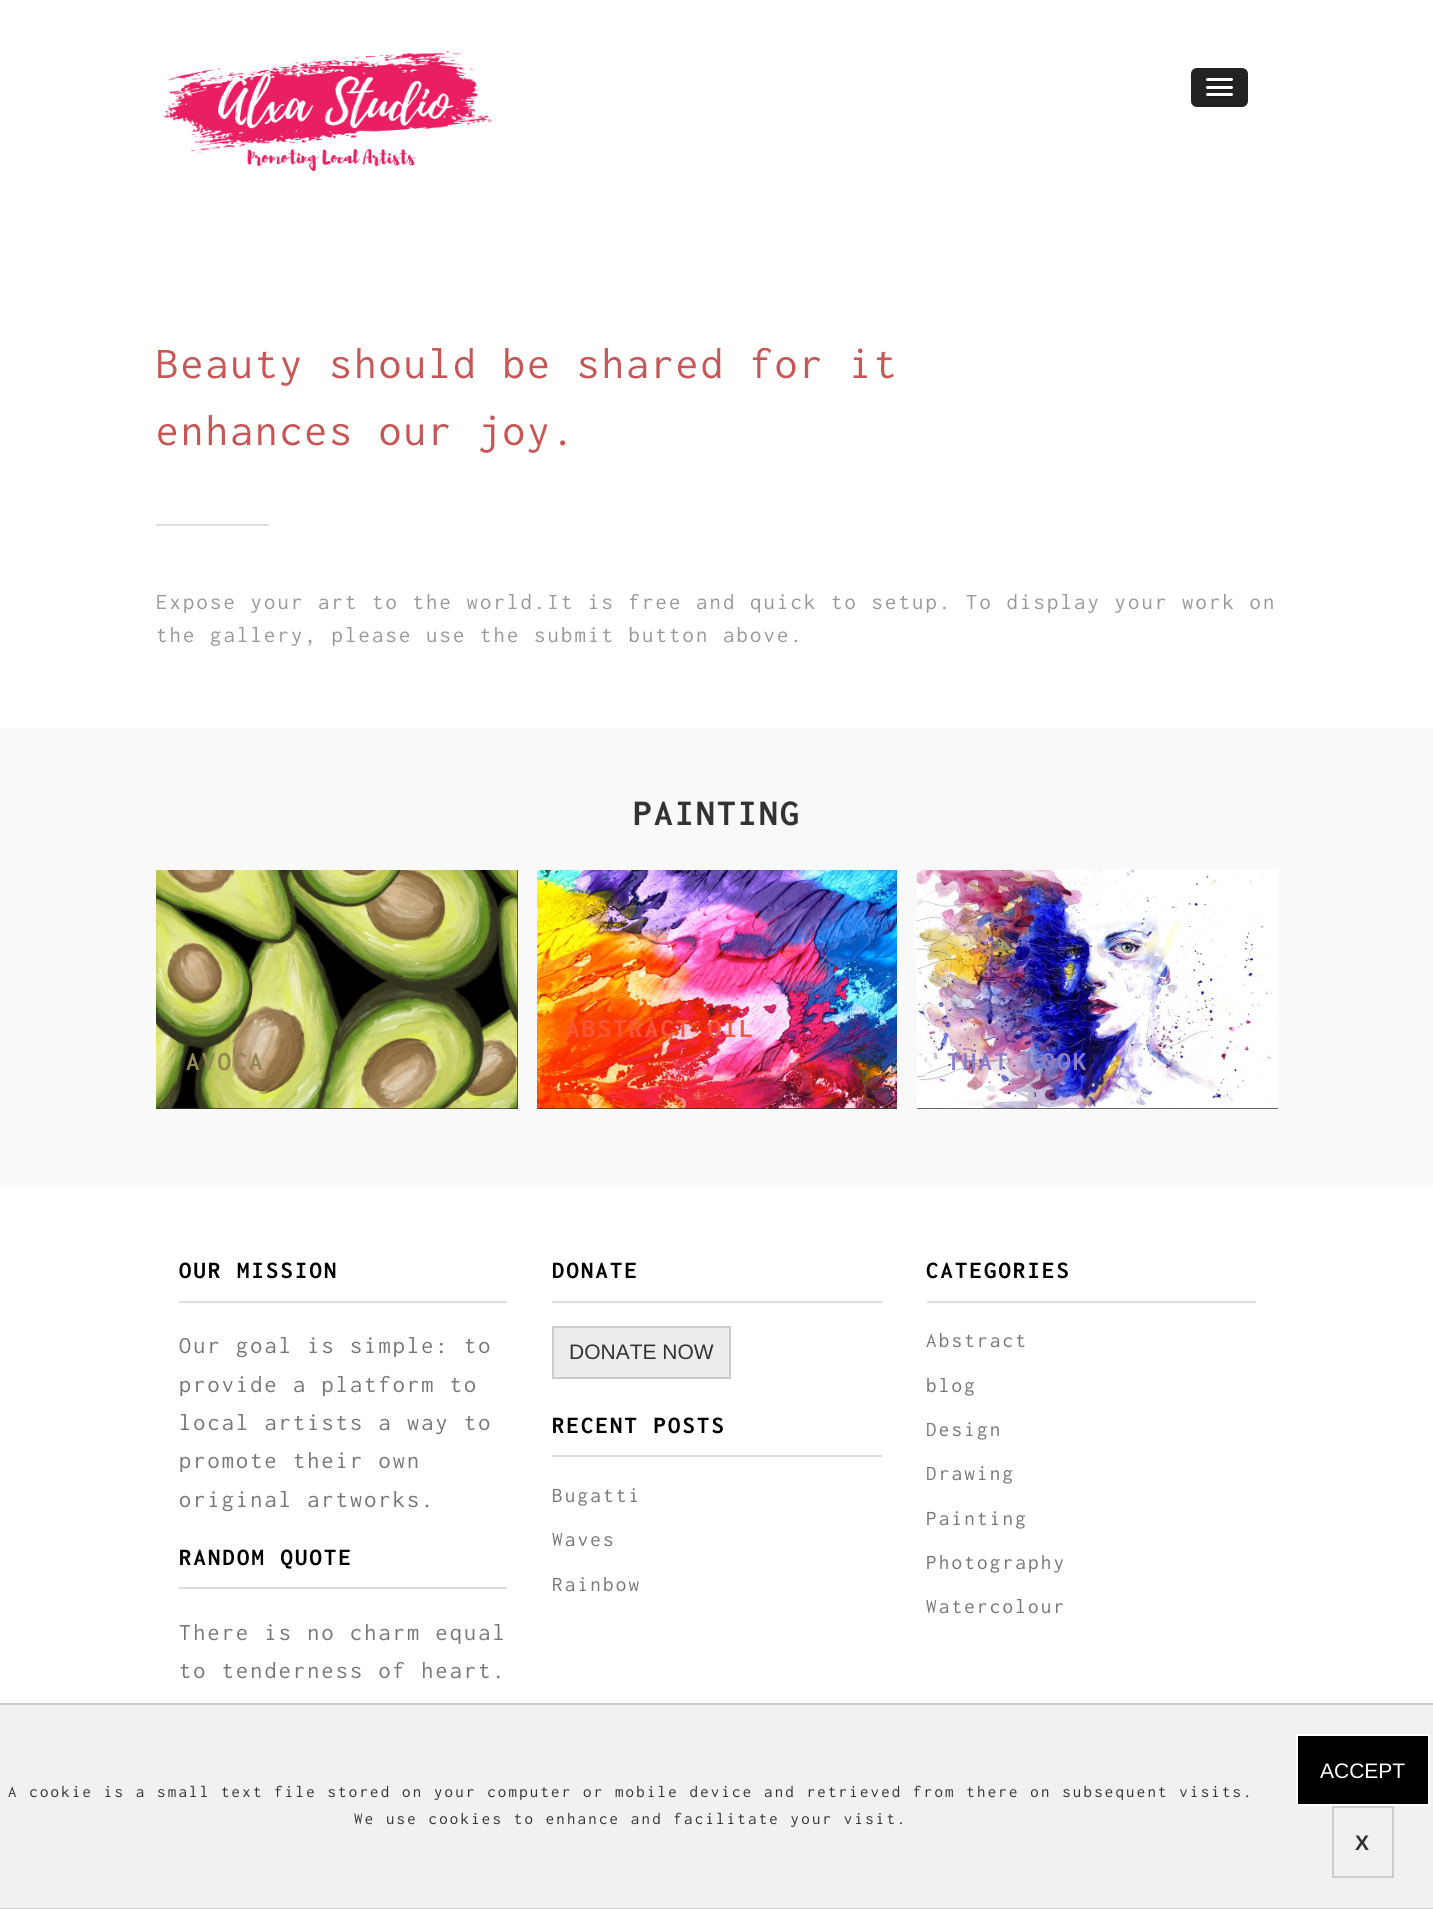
import math
import cairocffi as cairo

surface = cairo.ImageSurface(cairo.FORMAT_RGB24, 1433, 1909)
cr = cairo.Context(surface)
options = cairo.FontOptions()
options.set_hint_metrics(cairo.HINT_METRICS_OFF)
options.set_hint_style(cairo.HINT_STYLE_NONE)
cr.set_font_options(options)
cr.set_miter_limit(4)


def use_color(code):
    cr.set_source_rgb(*(v / 255 for v in bytes.fromhex(code[-6:])))


def spaced_text(x, y, s, letter, word):
    cr.move_to(x, y)
    for ch in s:
        cr.show_text(ch)
        cr.rel_move_to(letter + word * (ch == ' '), 0)


def round_rect(x, y, w, h, r):
    cr.new_sub_path()
    for i, (u, v) in enumerate([(x + w - r, y + h - r), (x + r, y + h - r), (x + r, y + r), (x + w - r, y + r)]):
        cr.arc(u, v, r, i * math.pi / 2, (i + 1) * math.pi / 2)
    cr.close_path()


def picture(path, x, y, w, h):
    cr.save()
    cr.set_source_surface(cairo.ImageSurface.create_from_png(path), x, y)
    cr.rectangle(x, y, w, h)
    cr.fill()
    cr.restore()


use_color("#ffffff")
cr.paint()
picture("img1.png", 163, 51, 329, 120)
use_color("#222222")
round_rect(1191, 68, 57, 39, 6)
cr.fill()
use_color("#1a1a1a")
cr.new_path()
cr.move_to(1206.5, 80.5)
cr.line_to(1206, 82)
cr.curve_to(1206.5, 84, 1211, 83, 1211.5, 83)
cr.line_to(1227.5, 83)
cr.curve_to(1228, 83, 1232.5, 84, 1233, 82)
cr.line_to(1232.5, 80.5)
cr.line_to(1231.5, 81)
cr.line_to(1207.5, 81)
cr.close_path()
cr.fill()
use_color("#ffffff")
round_rect(1206, 78, 27, 3, 1.5)
cr.fill()
use_color("#1a1a1a")
cr.new_path()
cr.move_to(1206, 87.5)
cr.curve_to(1204.5, 91, 1211.5, 90, 1211.5, 90)
cr.line_to(1227.5, 90)
cr.curve_to(1227.5, 90, 1234.5, 91, 1233, 87.5)
cr.curve_to(1232.5, 88, 1232, 88.5, 1231.5, 88.5)
cr.line_to(1207.5, 88.5)
cr.curve_to(1207, 88.5, 1206.5, 88, 1206, 87.5)
cr.close_path()
cr.fill()
use_color("#ffffff")
round_rect(1206, 86, 27, 3, 1.5)
cr.fill()
use_color("#1a1a1a")
cr.new_path()
cr.move_to(1206.5, 95.5)
cr.line_to(1206, 97)
cr.curve_to(1206.5, 99, 1211, 98, 1211.5, 98)
cr.line_to(1227.5, 98)
cr.curve_to(1228, 98, 1232.5, 99, 1233, 97)
cr.line_to(1232.5, 95.5)
cr.line_to(1231.5, 96)
cr.line_to(1207.5, 96)
cr.close_path()
cr.fill()
use_color("#ffffff")
round_rect(1206, 93, 27, 3, 1.5)
cr.fill()
cr.select_font_face("Inconsolata")
cr.set_font_size(45)
use_color("#c75757")
spaced_text(156, 378, "Beauty should be shared for it", 2.25, 0)
spaced_text(156, 445, "enhances our joy.", 2.25, 0)
use_color("#dddddd")
cr.rectangle(156, 524, 113, 2)
cr.fill()
cr.set_font_size(22.5)
use_color("#999999")
spaced_text(156, 609, "Expose your art to the world.It is free and quick to setup. To display your work on", 2.25, 0)
spaced_text(156, 642, "the gallery, please use the submit button above.", 2.25, 0)
use_color("#f9f9f9")
cr.rectangle(0, 728, 1433, 459)
cr.fill()
cr.select_font_face("Inconsolata", cairo.FONT_SLANT_NORMAL, cairo.FONT_WEIGHT_BOLD)
cr.set_font_size(37.5)
use_color("#333333")
spaced_text(633, 825, "PAINTING", 2.25, 0)
cr.rectangle(537, 1108, 360, 1)
cr.fill()
picture("img2.png", 537, 870, 360, 239)
cr.set_font_size(27)
use_color("#f85839")
spaced_text(566, 1037, "ABSTRACT OIL", 2.25, 0)
use_color("#333333")
cr.rectangle(156, 870, 362, 239)
cr.fill()
picture("img3.png", 156, 870, 362, 239)
use_color("#958754")
spaced_text(186, 1070, "AVOCA", 2.25, 0)
use_color("#333333")
cr.rectangle(917, 1108, 361, 1)
cr.fill()
picture("img4.png", 916, 870, 362, 239)
use_color("#8e7fc4")
spaced_text(947, 1070, "THAT LOOK", 2.25, 0)
use_color("#dddddd")
cr.rectangle(179, 1301, 328, 2)
cr.fill()
cr.set_font_size(24.5)
use_color("#000000")
spaced_text(179, 1278, "OUR MISSION", 2.25, 0)
cr.select_font_face("Inconsolata")
cr.set_font_size(24)
use_color("#777777")
spaced_text(179, 1353, "Our goal is simple: to", 2.25, 0)
spaced_text(179, 1392, "provide a platform to", 2.25, 0)
spaced_text(179, 1430, "local artists a way to", 2.25, 0)
spaced_text(179, 1468, "promote their own", 2.25, 0)
spaced_text(179, 1507, "original artworks.", 2.25, 0)
use_color("#dddddd")
cr.rectangle(179, 1587, 328, 2)
cr.fill()
cr.select_font_face("Inconsolata", cairo.FONT_SLANT_NORMAL, cairo.FONT_WEIGHT_BOLD)
cr.set_font_size(24.5)
use_color("#000000")
spaced_text(179, 1565, "RANDOM QUOTE", 2.25, 0)
cr.select_font_face("Inconsolata")
cr.set_font_size(24)
use_color("#777777")
spaced_text(179, 1640, "There is no charm equal", 2.25, 0)
spaced_text(179, 1678, "to tenderness of heart.", 2.25, 0)
use_color("#dddddd")
cr.rectangle(552, 1301, 330, 2)
cr.fill()
cr.select_font_face("Inconsolata", cairo.FONT_SLANT_NORMAL, cairo.FONT_WEIGHT_BOLD)
cr.set_font_size(24.5)
use_color("#000000")
spaced_text(552, 1278, "DONATE", 2.25, 0)
use_color("#ededed")
cr.rectangle(553, 1327, 177, 51)
cr.fill_preserve()
use_color("#cccccc")
cr.stroke()
cr.select_font_face("Liberation Sans")
cr.set_font_size(21)
use_color("#333333")
cr.move_to(569, 1359)
cr.show_text("DONATE NOW")
use_color("#dddddd")
cr.rectangle(552, 1455, 330, 2)
cr.fill()
cr.select_font_face("Inconsolata", cairo.FONT_SLANT_NORMAL, cairo.FONT_WEIGHT_BOLD)
cr.set_font_size(24.5)
use_color("#000000")
spaced_text(552, 1433, "RECENT POSTS", 2.25, 0)
cr.select_font_face("Inconsolata")
cr.set_font_size(21)
use_color("#777777")
spaced_text(552, 1502, "Bugatti", 2.25, 0)
spaced_text(552, 1546, "Waves", 2.25, 0)
spaced_text(552, 1591, "Rainbow", 2.25, 0)
use_color("#dddddd")
cr.rectangle(927, 1301, 329, 2)
cr.fill()
cr.select_font_face("Inconsolata", cairo.FONT_SLANT_NORMAL, cairo.FONT_WEIGHT_BOLD)
cr.set_font_size(24.5)
use_color("#000000")
spaced_text(926, 1278, "CATEGORIES", 2.25, 0)
cr.select_font_face("Inconsolata")
cr.set_font_size(21)
use_color("#777777")
spaced_text(926, 1347, "Abstract", 2.25, 0)
spaced_text(926, 1392, "blog", 2.25, 0)
spaced_text(926, 1436, "Design", 2.25, 0)
spaced_text(926, 1480, "Drawing", 2.25, 0)
spaced_text(926, 1525, "Painting", 2.25, 0)
spaced_text(926, 1569, "Photography", 2.25, 0)
spaced_text(926, 1613, "Watercolour", 2.25, 0)
use_color("#f1f1f1")
cr.rectangle(-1, 1704, 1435, 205)
cr.fill_preserve()
use_color("#cccccc")
cr.stroke()
cr.set_font_size(16.8)
use_color("#333333")
spaced_text(8, 1797, "A cookie is a small text file stored on your computer or mobile device and retrieved from there on subsequent visits.", 2.25, 0)
spaced_text(354, 1824, "We use cookies to enhance and facilitate your visit.", 2.25, 0)
use_color("#000000")
cr.rectangle(1297, 1735, 132, 70)
cr.fill_preserve()
use_color("#ffffff")
cr.stroke()
cr.select_font_face("Liberation Sans")
cr.set_font_size(21)
cr.move_to(1320, 1778)
cr.show_text("ACCEPT")
cr.rectangle(1333, 1807, 60, 70)
use_color("#cccccc")
cr.stroke()
cr.select_font_face("Liberation Sans", cairo.FONT_SLANT_NORMAL, cairo.FONT_WEIGHT_BOLD)
use_color("#333333")
cr.move_to(1355, 1850)
cr.show_text("X")
surface.write_to_png("result.png")
